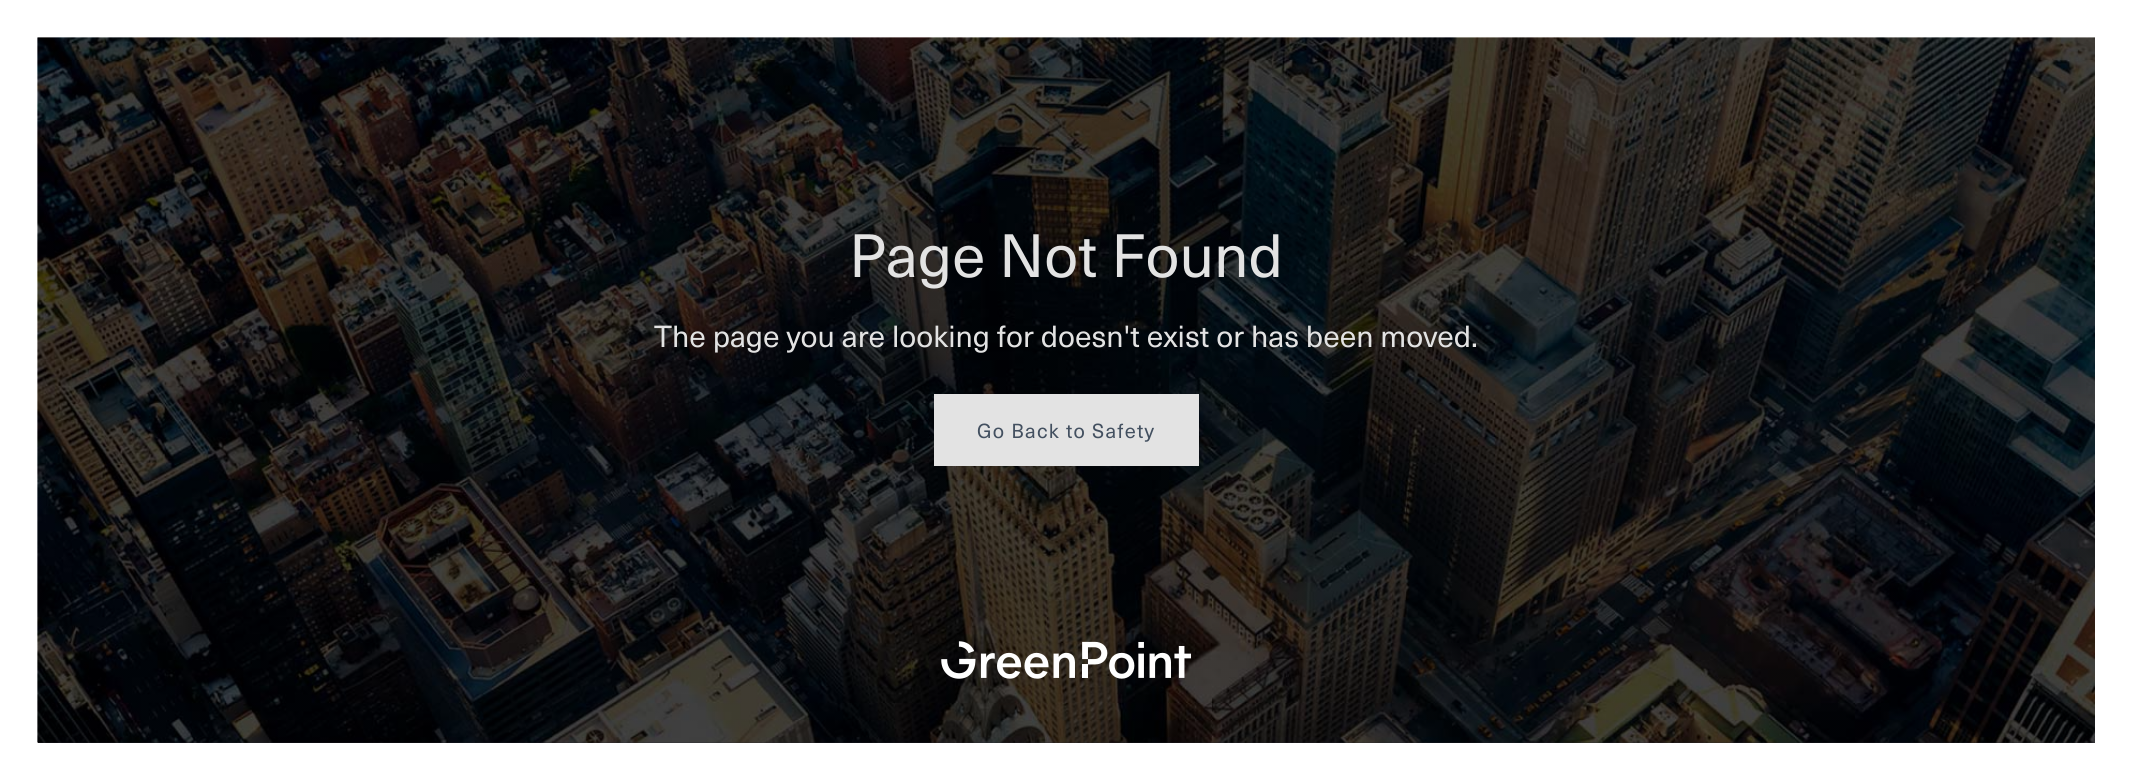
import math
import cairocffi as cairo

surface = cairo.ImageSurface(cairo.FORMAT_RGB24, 2132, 780)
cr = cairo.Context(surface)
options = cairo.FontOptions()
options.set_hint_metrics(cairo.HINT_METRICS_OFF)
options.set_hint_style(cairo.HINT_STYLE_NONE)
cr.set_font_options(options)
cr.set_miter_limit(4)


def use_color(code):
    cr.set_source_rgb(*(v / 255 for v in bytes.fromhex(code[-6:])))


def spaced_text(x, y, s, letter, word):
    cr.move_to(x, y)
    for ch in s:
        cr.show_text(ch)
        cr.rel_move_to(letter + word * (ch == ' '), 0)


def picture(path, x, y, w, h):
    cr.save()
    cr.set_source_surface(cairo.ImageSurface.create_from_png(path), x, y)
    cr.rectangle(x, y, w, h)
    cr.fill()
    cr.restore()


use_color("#ffffff")
cr.paint()
use_color("#1a1b1f")
cr.rectangle(38, 742, 2057, 1)
cr.fill()
picture("img1.png", 37, 37, 2058, 706)
cr.select_font_face("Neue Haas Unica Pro")
cr.set_font_size(60)
use_color("#e3e3e3")
cr.move_to(849, 277)
cr.show_text("Page Not Found")
cr.set_font_size(30)
cr.move_to(654, 347)
cr.show_text("The page you are looking for doesn't exist or has been moved.")
cr.rectangle(934, 394, 265, 72)
cr.fill()
cr.set_font_size(20)
use_color("#435060")
spaced_text(977, 438, "Go Back to Safety", 1.25, 0)
picture("img2.png", 941, 641, 250, 38)
surface.write_to_png("result.png")
